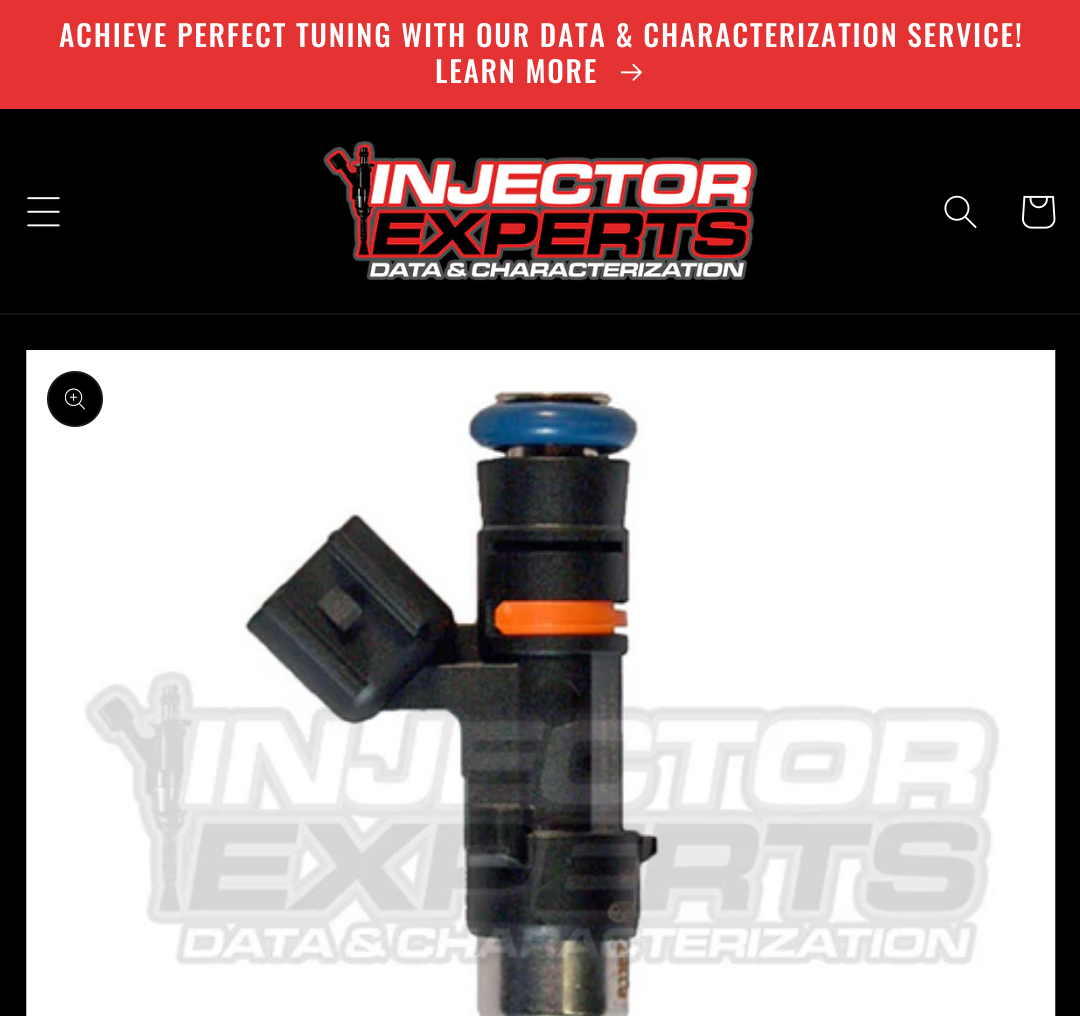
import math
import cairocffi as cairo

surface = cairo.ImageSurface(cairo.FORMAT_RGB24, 1080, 1016)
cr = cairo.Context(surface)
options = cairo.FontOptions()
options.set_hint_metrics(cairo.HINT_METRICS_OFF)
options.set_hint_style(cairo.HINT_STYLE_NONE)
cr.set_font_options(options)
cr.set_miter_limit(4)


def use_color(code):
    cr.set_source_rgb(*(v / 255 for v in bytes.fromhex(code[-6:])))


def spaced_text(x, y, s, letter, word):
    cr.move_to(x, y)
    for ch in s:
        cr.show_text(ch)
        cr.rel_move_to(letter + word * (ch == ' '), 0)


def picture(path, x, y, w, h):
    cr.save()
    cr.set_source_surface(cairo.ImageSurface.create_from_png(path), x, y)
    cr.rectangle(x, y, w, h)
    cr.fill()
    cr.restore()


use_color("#000000")
cr.paint()
use_color("#e53636")
cr.rectangle(0, 107, 1080, 2)
cr.fill()
use_color("#e53232")
cr.rectangle(0, 0, 1080, 107)
cr.fill()
cr.select_font_face("Oswald Medium")
cr.set_font_size(29.4)
use_color("#ffffff")
spaced_text(59, 47, "ACHIEVE PERFECT TUNING WITH OUR DATA & CHARACTERIZATION SERVICE!", 1.75, 0)
spaced_text(435, 83, "LEARN MORE", 1.75, 0)
picture("img1.png", 621, 63, 21, 18)
use_color("#141414")
cr.rectangle(0, 313, 1080, 2)
cr.fill()
picture("img2.png", 27, 197, 33, 30)
picture("img3.png", 323, 141, 435, 140)
picture("img4.png", 944, 195, 33, 34)
picture("img5.png", 1022, 195, 34, 34)
picture("img6.png", 26, 350, 1030, 666)
use_color("#000000")
cr.arc(75, 399, 28, 0, 2 * math.pi)
cr.fill()
cr.arc(75, 399, 27, 0, 2 * math.pi)
cr.set_source_rgba(1, 1, 1, 0.1)
cr.stroke()
picture("img7.png", 65, 388, 20, 22)
surface.write_to_png("result.png")
